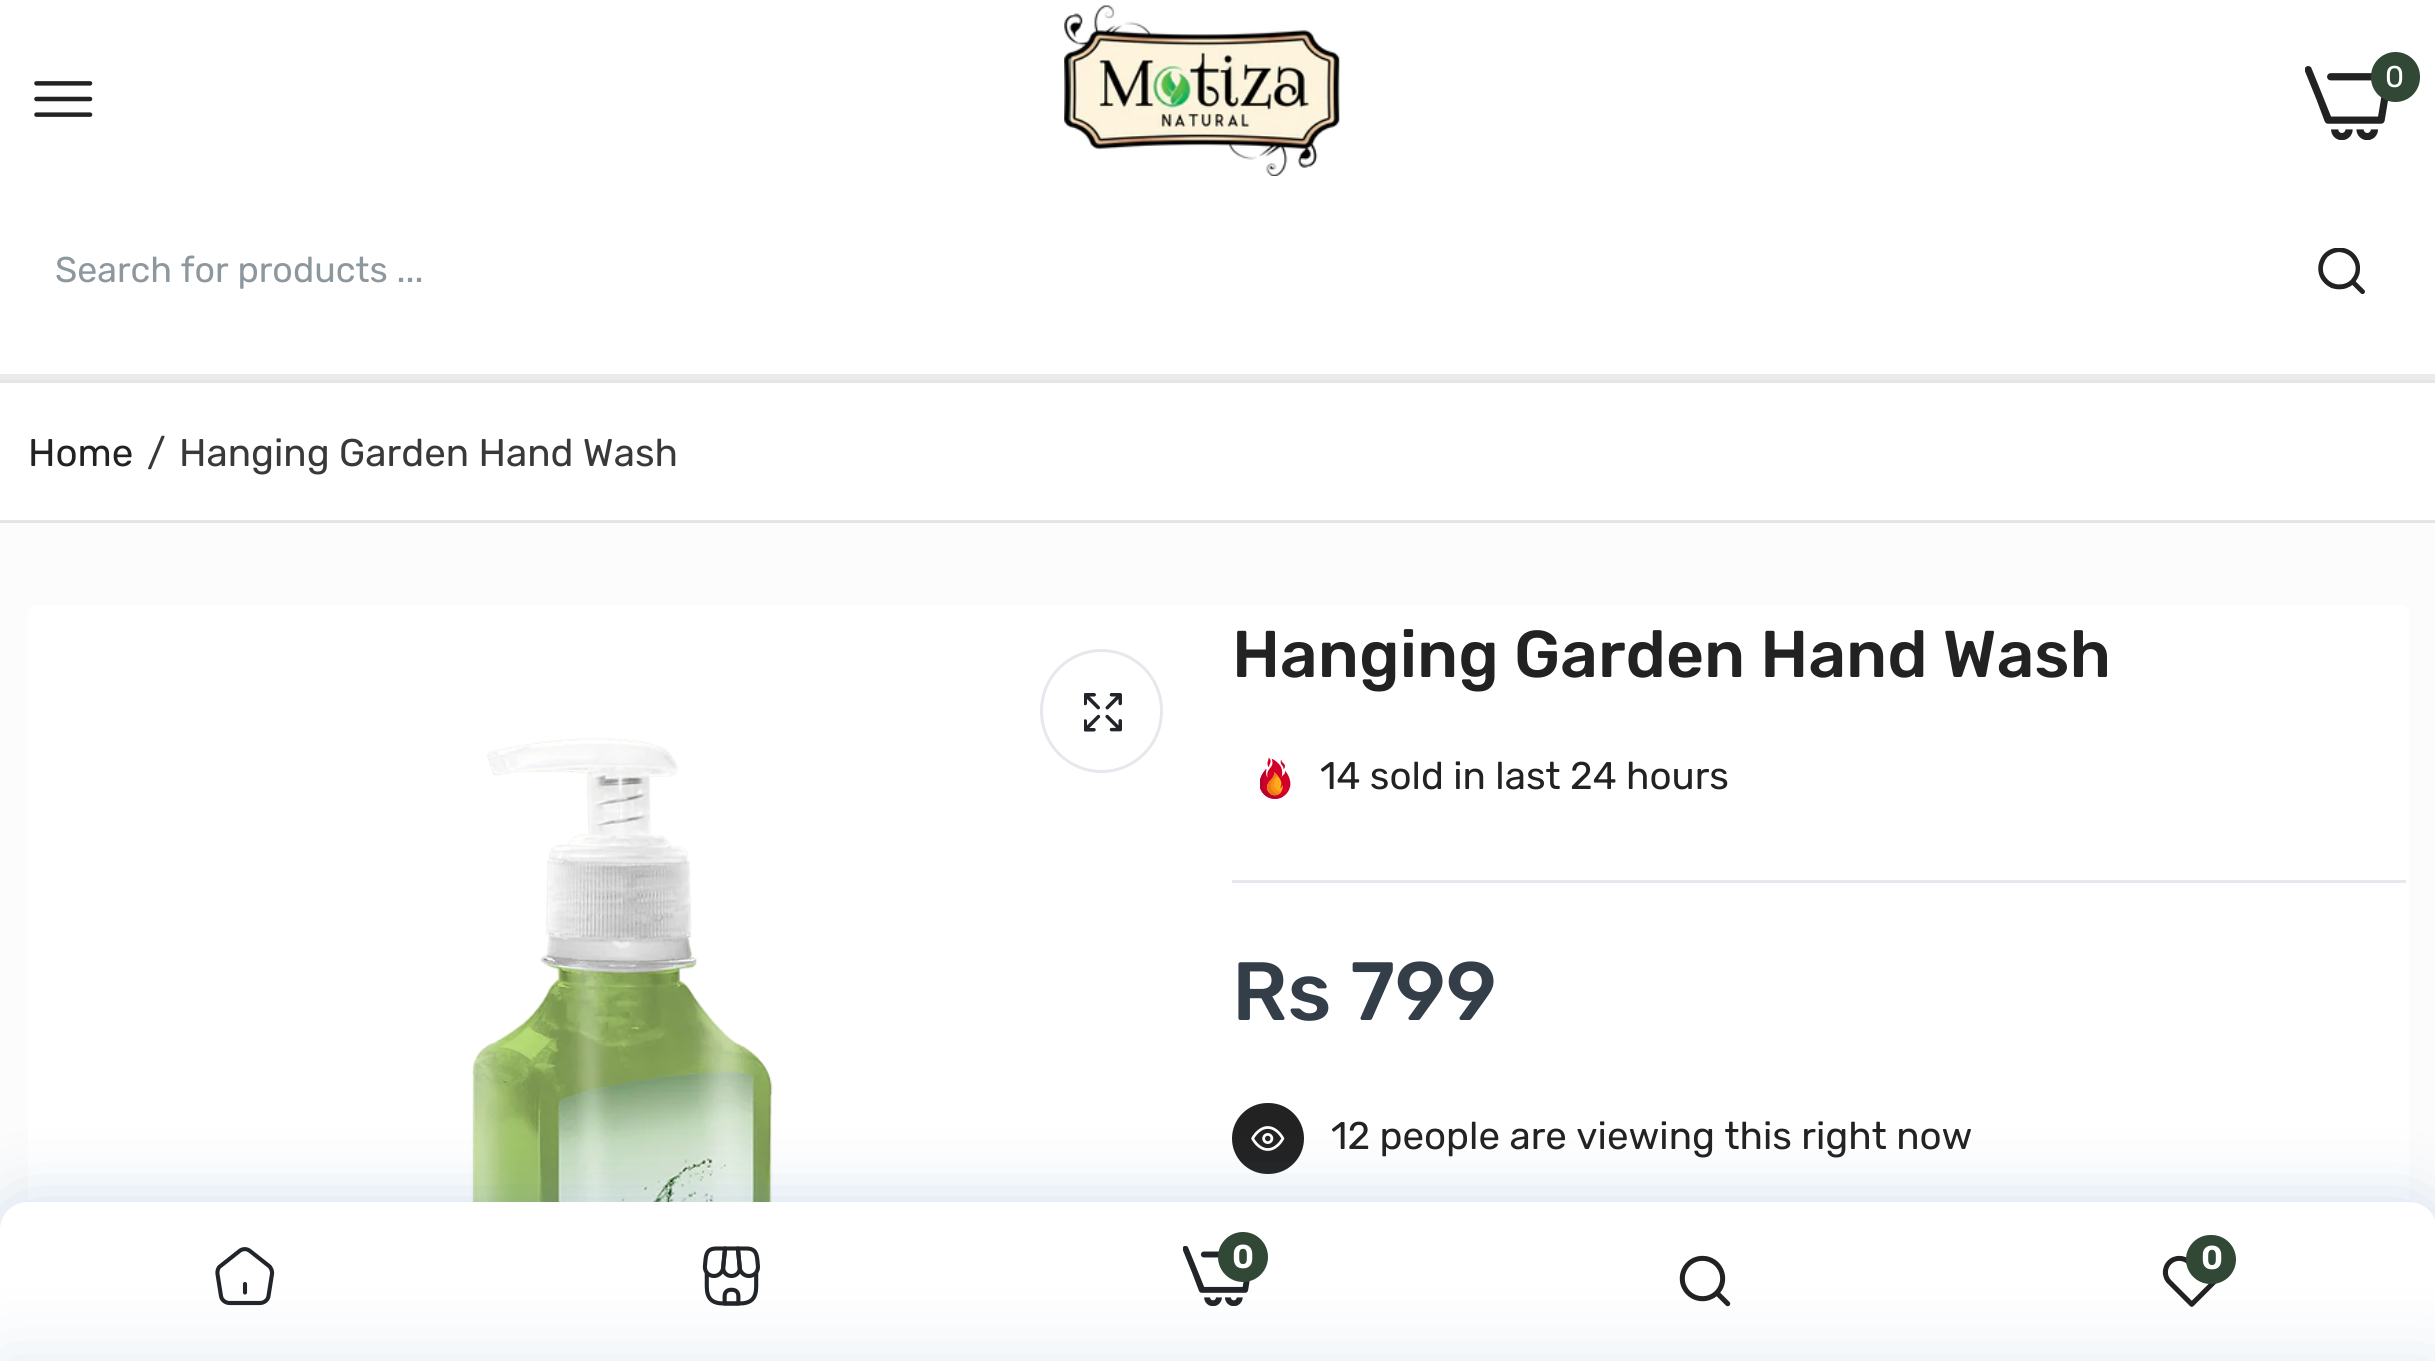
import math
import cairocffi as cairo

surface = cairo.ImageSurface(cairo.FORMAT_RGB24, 2435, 1361)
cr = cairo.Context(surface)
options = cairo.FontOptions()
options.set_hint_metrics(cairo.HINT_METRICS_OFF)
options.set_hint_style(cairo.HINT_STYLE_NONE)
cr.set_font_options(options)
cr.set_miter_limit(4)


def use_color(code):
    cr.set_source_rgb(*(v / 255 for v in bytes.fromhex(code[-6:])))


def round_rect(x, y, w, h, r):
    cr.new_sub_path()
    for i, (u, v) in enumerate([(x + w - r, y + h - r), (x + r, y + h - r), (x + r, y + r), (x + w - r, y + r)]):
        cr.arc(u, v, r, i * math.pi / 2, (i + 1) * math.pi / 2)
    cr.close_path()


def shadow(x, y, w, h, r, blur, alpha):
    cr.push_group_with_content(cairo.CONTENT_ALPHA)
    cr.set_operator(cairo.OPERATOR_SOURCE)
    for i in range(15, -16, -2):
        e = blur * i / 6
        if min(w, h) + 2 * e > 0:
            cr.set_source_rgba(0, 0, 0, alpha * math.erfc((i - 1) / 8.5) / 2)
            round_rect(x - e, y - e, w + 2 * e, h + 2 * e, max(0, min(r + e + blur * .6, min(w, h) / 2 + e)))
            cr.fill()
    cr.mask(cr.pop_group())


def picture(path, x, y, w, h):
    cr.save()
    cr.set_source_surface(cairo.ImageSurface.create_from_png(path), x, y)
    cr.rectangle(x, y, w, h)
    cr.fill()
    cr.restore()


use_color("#fcfcfc")
cr.paint()
use_color("#ffffff")
cr.rectangle(0, 0, 2435, 374)
cr.fill()
use_color("#ebebeb")
cr.rectangle(0, 374, 2435, 6)
cr.fill()
picture("img1.png", 1064, 5, 276, 171)
picture("img2.png", 2305, 66, 84, 74)
use_color("#304835")
round_rect(2371, 52, 49, 50, 24.5)
cr.fill()
cr.select_font_face("Rubik")
cr.set_font_size(30)
use_color("#ffffff")
cr.move_to(2385, 87)
cr.show_text("0")
picture("img3.png", 34, 81, 59, 36)
cr.set_font_size(35.75)
use_color("#8d979e")
cr.move_to(55, 282)
cr.show_text("Search for products ...")
picture("img4.png", 2318, 248, 47, 46)
use_color("#ffffff")
cr.rectangle(0, 383, 2435, 137)
cr.fill()
use_color("#e5e5e5")
cr.rectangle(0, 380, 2435, 3)
cr.fill()
cr.rectangle(0, 520, 2435, 3)
cr.fill()
cr.set_font_size(38.5)
use_color("#222222")
cr.move_to(28, 466)
cr.show_text("Home")
use_color("#393939")
cr.move_to(147, 466)
cr.show_text("/")
cr.move_to(179, 466)
cr.show_text("Hanging Garden Hand Wash")
use_color("#ffffff")
round_rect(28, 605, 2381, 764, 8)
cr.fill()
round_rect(1041.5, 650.5, 120, 121, 60)
use_color("#e5e8ec")
cr.set_line_width(3)
cr.stroke()
picture("img5.png", 1084, 693, 38, 39)
picture("img6.png", 471, 738, 302, 464)
cr.select_font_face("Rubik Medium")
cr.set_font_size(66)
use_color("#222222")
cr.move_to(1232, 677)
cr.show_text("Hanging Garden Hand Wash")
use_color("#e5e8ec")
cr.rectangle(1232, 880, 1174, 3)
cr.fill()
picture("img7.png", 1260, 757, 31, 42)
cr.select_font_face("Rubik")
cr.set_font_size(38.5)
use_color("#222222")
cr.move_to(1320, 789)
cr.show_text("14 sold in last 24 hours")
cr.select_font_face("Rubik Medium")
cr.set_font_size(82.5)
use_color("#333e48")
cr.move_to(1232, 1020)
cr.show_text("Rs 799")
use_color("#222222")
round_rect(1232, 1103, 72, 71, 35.5)
cr.fill()
picture("img8.png", 1251, 1126, 34, 25)
cr.select_font_face("Rubik")
cr.set_font_size(38.5)
cr.move_to(1331, 1149)
cr.show_text("12 people are viewing this right now")
use_color("#487bb7")
shadow(0, 1202, 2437, 159, 28, 34.5, 0.25)
use_color("#ffffff")
cr.new_path()
cr.move_to(28, 1202)
cr.line_to(2409, 1202)
cr.curve_to(2424.5, 1202, 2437, 1214.5, 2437, 1230)
cr.line_to(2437, 1361)
cr.line_to(0, 1361)
cr.line_to(0, 1230)
cr.curve_to(0, 1214.5, 12.5, 1202, 28, 1202)
cr.close_path()
cr.fill()
cr.new_path()
cr.move_to(245, 1292.5)
cr.line_to(245, 1284)
cr.move_to(239.5, 1251)
cr.line_to(220.5, 1266)
cr.curve_to(218, 1267.5, 217, 1271.5, 217.5, 1274)
cr.line_to(221, 1296)
cr.curve_to(221.5, 1300, 225.5, 1303, 229.5, 1303)
cr.line_to(260, 1303)
cr.curve_to(264, 1303, 268, 1300, 268.5, 1296)
cr.line_to(272, 1274)
cr.curve_to(272.5, 1271.5, 271, 1267.5, 269, 1266)
cr.line_to(250, 1251)
cr.curve_to(247, 1248.5, 242.5, 1248.5, 239.5, 1251)
cr.close_path()
use_color("#212529")
cr.set_line_width(4.1)
cr.set_line_cap(cairo.LINE_CAP_ROUND)
cr.set_line_join(cairo.LINE_JOIN_ROUND)
cr.stroke()
picture("img9.png", 702, 1246, 58, 60)
picture("img10.png", 1183, 1246, 67, 60)
use_color("#304835")
cr.arc(1243, 1257, 25, 0, 2 * math.pi)
cr.fill()
picture("img11.png", 1679, 1255, 52, 52)
picture("img12.png", 2162, 1255, 55, 52)
round_rect(2186, 1235, 50, 49, 24.5)
cr.fill()
use_color("#487bb7")
shadow(0, 1361, 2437, 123, 0, 41, 0.15)
cr.select_font_face("Rubik SemiBold")
cr.set_font_size(33)
use_color("#ffffff")
cr.move_to(1232, 1268)
cr.show_text("0")
cr.move_to(2201, 1269)
cr.show_text("0")
surface.write_to_png("result.png")
